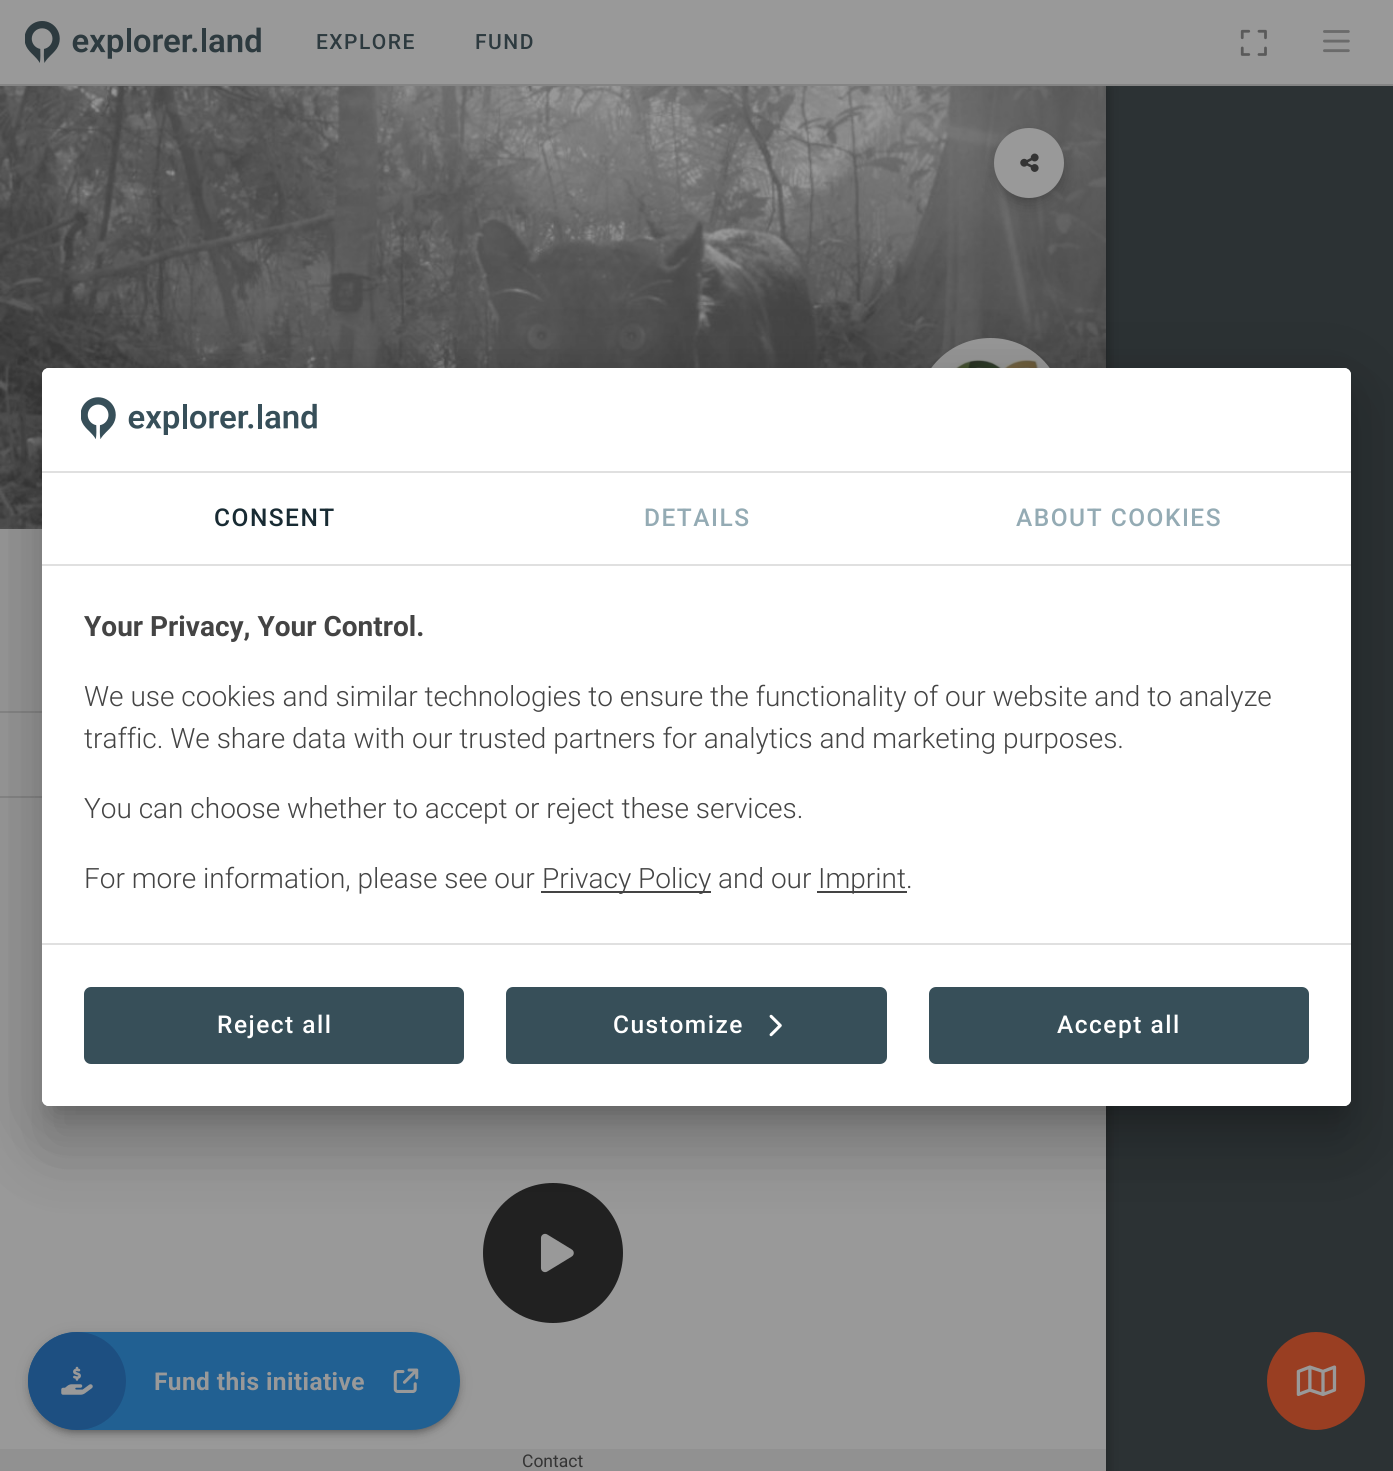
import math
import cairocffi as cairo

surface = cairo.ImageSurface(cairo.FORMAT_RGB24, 1393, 1471)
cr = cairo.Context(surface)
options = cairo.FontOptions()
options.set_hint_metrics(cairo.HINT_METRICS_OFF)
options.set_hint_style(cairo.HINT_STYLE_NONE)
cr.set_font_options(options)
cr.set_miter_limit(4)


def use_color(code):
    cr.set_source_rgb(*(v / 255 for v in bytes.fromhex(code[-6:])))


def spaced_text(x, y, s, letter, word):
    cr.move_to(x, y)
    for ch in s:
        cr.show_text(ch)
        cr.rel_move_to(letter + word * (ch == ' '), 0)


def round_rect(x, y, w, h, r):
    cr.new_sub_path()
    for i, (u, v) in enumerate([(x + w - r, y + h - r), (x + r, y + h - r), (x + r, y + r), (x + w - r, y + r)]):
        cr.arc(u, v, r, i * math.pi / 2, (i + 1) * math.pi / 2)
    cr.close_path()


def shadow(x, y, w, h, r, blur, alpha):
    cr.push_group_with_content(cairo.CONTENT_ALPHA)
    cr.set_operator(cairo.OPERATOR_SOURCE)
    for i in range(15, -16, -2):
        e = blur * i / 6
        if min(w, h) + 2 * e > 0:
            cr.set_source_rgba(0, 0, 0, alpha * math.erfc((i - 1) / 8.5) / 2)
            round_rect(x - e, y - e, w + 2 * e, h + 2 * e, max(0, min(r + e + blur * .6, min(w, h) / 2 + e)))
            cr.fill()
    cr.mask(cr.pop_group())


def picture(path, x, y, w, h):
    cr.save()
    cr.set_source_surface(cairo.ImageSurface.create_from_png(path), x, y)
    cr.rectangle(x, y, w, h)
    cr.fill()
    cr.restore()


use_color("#2c3234")
cr.paint()
use_color("#0f0f0f")
shadow(0, 88, 1106, 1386, 0, 7, 0.5)
use_color("#848484")
cr.rectangle(0, 84, 1393, 2)
cr.fill()
use_color("#999999")
cr.rectangle(0, 0, 1393, 84)
cr.fill()
picture("img1.png", 25, 21, 236, 42)
cr.select_font_face("Roboto Medium")
cr.set_font_size(21)
use_color("#2d3a3f")
spaced_text(316, 49, "EXPLORE", 1.5, 0)
spaced_text(475, 49, "FUND", 1.5, 0)
picture("img2.png", 1240, 29, 27, 27)
picture("img3.png", 1323, 30, 27, 23)
use_color("#999999")
cr.rectangle(0, 527, 1106, 922)
cr.fill()
picture("img4.png", 0, 86, 1106, 443)
use_color("#0f0f0f")
shadow(994, 138, 70, 70, 35, 9, 0.14)
shadow(996, 135, 66, 66, 33, 4.5, 0.2)
use_color("#999999")
cr.arc(1029, 163, 35, 0, 2 * math.pi)
cr.fill()
picture("img5.png", 1020, 153, 19, 19)
use_color("#0f0f0f")
shadow(917, 340, 147, 148, 73.5, 2.5, 0.12)
use_color("#999999")
round_rect(917, 338, 147, 149, 73.5)
cr.fill()
picture("img6.png", 942, 359, 97, 9)
use_color("#888888")
cr.rectangle(0, 711, 42, 2)
cr.fill()
cr.rectangle(0, 796, 42, 2)
cr.fill()
use_color("#212121")
cr.new_path()
cr.move_to(553, 1323)
cr.curve_to(592, 1323, 623, 1292, 623, 1253)
cr.curve_to(623, 1214, 592, 1183, 553, 1183)
cr.curve_to(514, 1183, 483, 1214, 483, 1253)
cr.curve_to(483, 1292, 514, 1323, 553, 1323)
cr.close_path()
cr.fill()
picture("img7.png", 540, 1233, 34, 40)
use_color("#919191")
cr.rectangle(0, 1449, 1106, 22)
cr.fill()
use_color("#0f0f0f")
shadow(28, 1334, 432, 98, 49, 7, 0.12)
shadow(28, 1337, 432, 98, 49, 3.5, 0.14)
shadow(32, 1341, 425, 91, 45.5, 2.5, 0.2)
use_color("#216092")
round_rect(28, 1332, 432, 98, 49)
cr.fill()
use_color("#1d4f81")
cr.arc(77, 1381, 49, 0, 2 * math.pi)
cr.fill()
picture("img8.png", 61, 1366, 32, 29)
cr.select_font_face("Roboto", cairo.FONT_SLANT_NORMAL, cairo.FONT_WEIGHT_BOLD)
cr.set_font_size(24.5)
use_color("#999999")
spaced_text(154, 1390, "Fund this initiative", 0.4, 0)
picture("img9.png", 393, 1368, 26, 25)
cr.select_font_face("Roboto")
cr.set_font_size(17.5)
use_color("#343434")
cr.move_to(522, 1467)
cr.show_text("Contact")
use_color("#993e22")
cr.new_path()
cr.arc(1316, 1381, 49, 0, 2 * math.pi)
cr.fill()
picture("img10.png", 1296, 1365, 41, 31)
use_color("#000000")
shadow(28, 369, 1337, 767, 21, 40, 0.12)
shadow(37, 404, 1319, 749, 12, 33, 0.14)
shadow(54, 399, 1285, 714, 0, 13, 0.2)
use_color("#ffffff")
round_rect(42, 368, 1309, 738, 7)
cr.fill()
cr.new_path()
cr.move_to(49, 368)
cr.line_to(1344, 368)
cr.curve_to(1348, 368, 1351, 371, 1351, 375)
cr.line_to(1351, 565)
cr.line_to(42, 565)
cr.line_to(42, 375)
cr.curve_to(42, 371, 45, 368, 49, 368)
cr.close_path()
cr.fill()
use_color("#e0e0e0")
cr.rectangle(42, 564, 1309, 2)
cr.fill()
cr.rectangle(42, 471, 1309, 2)
cr.fill()
picture("img11.png", 81, 397, 236, 42)
cr.select_font_face("Roboto Medium")
cr.set_font_size(24.5)
use_color("#182b33")
spaced_text(214, 526, "CONSENT", 1.5, 0)
use_color("#94abb4")
spaced_text(644, 526, "DETAILS", 1.5, 0)
spaced_text(1016, 526, "ABOUT COOKIES", 1.5, 0)
cr.select_font_face("Roboto", cairo.FONT_SLANT_NORMAL, cairo.FONT_WEIGHT_BOLD)
cr.set_font_size(28)
use_color("#444444")
cr.move_to(84, 636)
cr.show_text("Your Privacy, Your Control.")
cr.select_font_face("Roboto Light")
cr.move_to(84, 706)
cr.show_text("We use cookies and similar technologies to ensure the functionality of our website and to analyze")
cr.move_to(84, 748)
cr.show_text("traffic. We share data with our trusted partners for analytics and marketing purposes.")
cr.move_to(84, 818)
cr.show_text("You can choose whether to accept or reject these services.")
cr.move_to(84, 888)
cr.show_text("For more information, please see our")
cr.rectangle(541, 891, 170, 2)
cr.fill()
cr.move_to(542, 888)
cr.show_text("Privacy Policy and our")
cr.rectangle(817, 891, 90, 2)
cr.fill()
cr.move_to(818, 888)
cr.show_text("Imprint.")
use_color("#ffffff")
cr.new_path()
cr.move_to(42, 943)
cr.line_to(1351, 943)
cr.line_to(1351, 1099)
cr.curve_to(1351, 1103, 1348, 1106, 1344, 1106)
cr.line_to(49, 1106)
cr.curve_to(45, 1106, 42, 1103, 42, 1099)
cr.close_path()
cr.fill()
use_color("#e0e0e0")
cr.rectangle(42, 943, 1309, 2)
cr.fill()
use_color("#374f59")
round_rect(84, 987, 380, 77, 7)
cr.fill()
cr.select_font_face("Roboto Medium")
cr.set_font_size(24.5)
use_color("#ffffff")
spaced_text(217, 1033, "Reject all", 1.5, 0)
use_color("#374f59")
round_rect(506, 987, 381, 77, 7)
cr.fill()
use_color("#ffffff")
spaced_text(613, 1033, "Customize", 1.5, 0)
picture("img12.png", 769, 1014, 13, 23)
use_color("#374f59")
round_rect(929, 987, 380, 77, 7)
cr.fill()
use_color("#ffffff")
spaced_text(1057, 1033, "Accept all", 1.5, 0)
surface.write_to_png("result.png")
